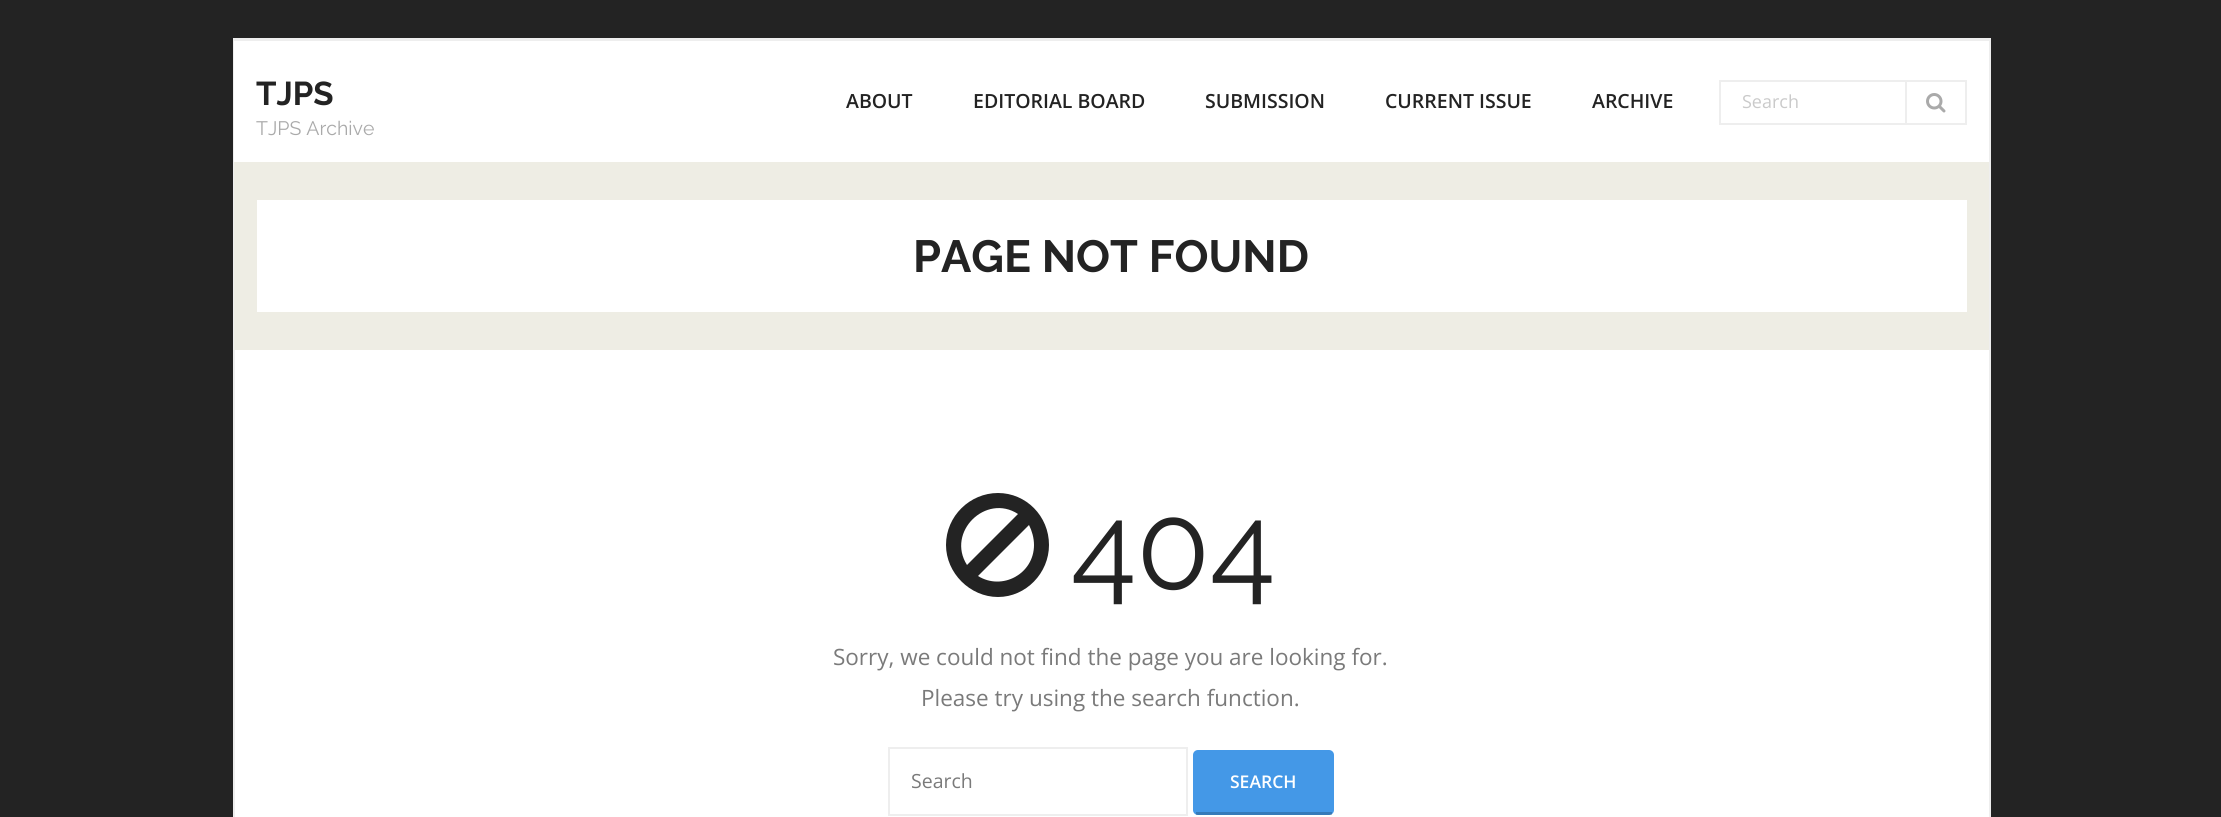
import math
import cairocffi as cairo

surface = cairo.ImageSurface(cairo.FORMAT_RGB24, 2221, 817)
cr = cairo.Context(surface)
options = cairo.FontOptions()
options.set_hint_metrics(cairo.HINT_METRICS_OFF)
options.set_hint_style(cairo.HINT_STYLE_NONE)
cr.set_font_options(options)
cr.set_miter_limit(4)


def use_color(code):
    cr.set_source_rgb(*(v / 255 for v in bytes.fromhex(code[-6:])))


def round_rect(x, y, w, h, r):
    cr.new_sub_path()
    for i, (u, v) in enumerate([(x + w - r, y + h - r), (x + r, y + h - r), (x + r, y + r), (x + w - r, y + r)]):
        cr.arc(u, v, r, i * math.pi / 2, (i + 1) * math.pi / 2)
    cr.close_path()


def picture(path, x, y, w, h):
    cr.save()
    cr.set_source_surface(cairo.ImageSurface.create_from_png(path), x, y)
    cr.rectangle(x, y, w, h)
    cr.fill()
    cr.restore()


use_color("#232323")
cr.paint()
use_color("#ffffff")
cr.rectangle(235, 350, 1754, 467)
cr.fill()
cr.rectangle(234, 39, 1756, 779)
use_color("#eeeeee")
cr.stroke()
cr.rectangle(234, 40, 1755, 1)
cr.fill()
use_color("#ffffff")
cr.rectangle(234, 41, 1755, 121)
cr.fill()
cr.select_font_face("Raleway", cairo.FONT_SLANT_NORMAL, cairo.FONT_WEIGHT_BOLD)
cr.set_font_size(33)
use_color("#232323")
cr.move_to(256, 105)
cr.show_text("TJPS")
cr.select_font_face("Raleway")
cr.set_font_size(19.5)
use_color("#aaaaaa")
cr.move_to(256, 135)
cr.show_text("TJPS Archive")
cr.select_font_face("Open Sans SemiBold")
use_color("#232323")
cr.move_to(846, 108)
cr.show_text("ABOUT")
cr.move_to(973, 108)
cr.show_text("EDITORIAL BOARD")
cr.move_to(1205, 108)
cr.show_text("SUBMISSION")
cr.move_to(1385, 108)
cr.show_text("CURRENT ISSUE")
cr.move_to(1592, 108)
cr.show_text("ARCHIVE")
cr.rectangle(1720, 81, 246, 43)
use_color("#eeeeee")
cr.stroke()
cr.select_font_face("Open Sans")
cr.set_font_size(18)
use_color("#cacaca")
cr.move_to(1742, 108)
cr.show_text("Search")
use_color("#eeeeee")
cr.rectangle(1905, 80, 2, 45)
cr.fill()
picture("img1.png", 1926, 93, 20, 20)
use_color("#eeede4")
cr.rectangle(234, 162, 1755, 188)
cr.fill()
use_color("#ffffff")
cr.rectangle(257, 200, 1710, 112)
cr.fill()
cr.select_font_face("Raleway", cairo.FONT_SLANT_NORMAL, cairo.FONT_WEIGHT_BOLD)
cr.set_font_size(45)
use_color("#232323")
cr.move_to(913, 272)
cr.show_text("PAGE NOT FOUND")
cr.new_path()
cr.move_to(1034, 545)
cr.curve_to(1034, 574, 1002, 591, 978, 576)
cr.line_to(1029, 525)
cr.curve_to(1032, 531, 1034, 538, 1034, 545)
cr.close_path()
cr.move_to(967, 565)
cr.curve_to(946, 532, 986, 493, 1018, 514)
cr.close_path()
cr.move_to(1049, 545)
cr.curve_to(1049, 516, 1026, 493, 998, 493)
cr.curve_to(970, 493, 946, 516, 946, 545)
cr.curve_to(946, 573, 970, 597, 998, 597)
cr.curve_to(1026, 597, 1049, 573, 1049, 545)
cr.close_path()
cr.fill()
cr.select_font_face("Raleway")
cr.set_font_size(120)
cr.move_to(1071, 589)
cr.show_text("404")
cr.select_font_face("Open Sans")
cr.set_font_size(22.5)
use_color("#7a7a7a")
cr.move_to(833, 665)
cr.show_text("Sorry, we could not find the page you are looking for.")
cr.move_to(921, 706)
cr.show_text("Please try using the search function.")
cr.rectangle(889, 748, 298, 67)
use_color("#eeeeee")
cr.stroke()
cr.set_font_size(19.5)
use_color("#7a7a7a")
cr.move_to(911, 788)
cr.show_text("Search")
use_color("#4498e7")
round_rect(1193, 750, 141, 65, 5)
cr.fill()
cr.set_source_rgba(0, 0, 0, 0.2)
cr.rectangle(1196, 812, 136, 3)
cr.fill()
cr.select_font_face("Open Sans SemiBold")
cr.set_font_size(17.5)
use_color("#ffffff")
cr.move_to(1230, 788)
cr.show_text("SEARCH")
surface.write_to_png("result.png")
